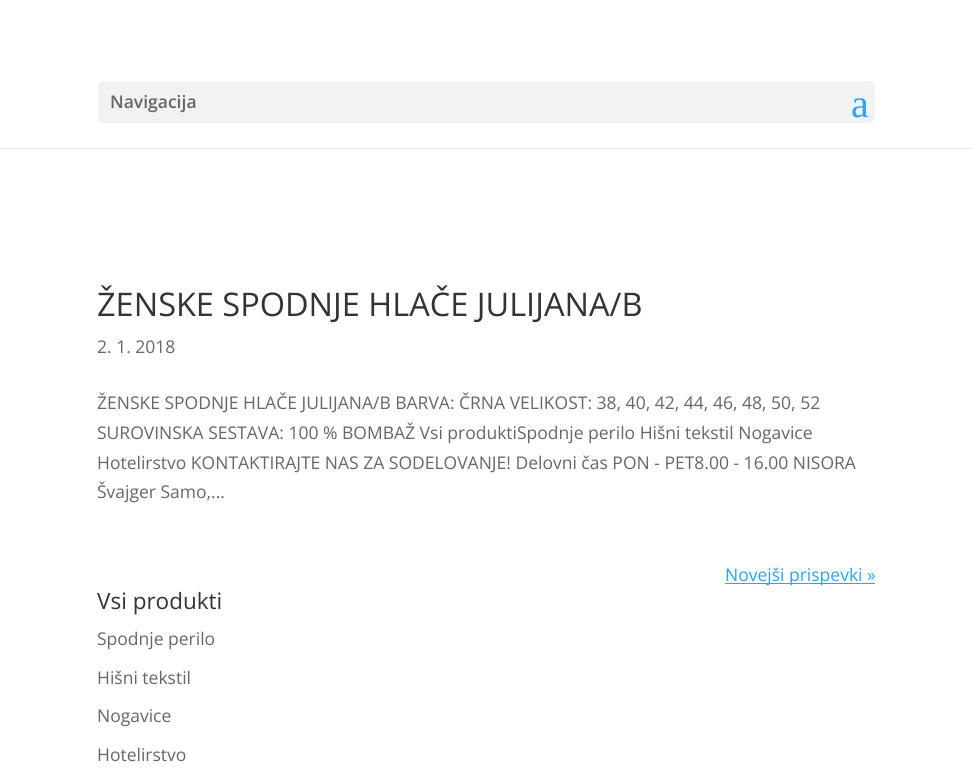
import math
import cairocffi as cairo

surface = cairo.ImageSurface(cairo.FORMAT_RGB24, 972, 776)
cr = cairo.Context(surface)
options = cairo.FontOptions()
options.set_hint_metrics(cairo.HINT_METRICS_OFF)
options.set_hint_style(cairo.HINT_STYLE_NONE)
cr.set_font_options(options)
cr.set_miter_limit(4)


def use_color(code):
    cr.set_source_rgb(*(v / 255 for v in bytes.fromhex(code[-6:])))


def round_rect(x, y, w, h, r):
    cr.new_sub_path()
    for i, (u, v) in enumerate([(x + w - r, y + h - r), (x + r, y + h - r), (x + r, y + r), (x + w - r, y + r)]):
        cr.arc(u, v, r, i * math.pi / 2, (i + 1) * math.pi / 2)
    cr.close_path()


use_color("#ffffff")
cr.paint()
use_color("#e6e6e6")
cr.new_path()
cr.move_to(0, 148)
cr.line_to(0, 149)
cr.line_to(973, 149)
cr.line_to(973, 1)
cr.line_to(972, 1)
cr.line_to(972, 148)
cr.close_path()
cr.fill()
use_color("#f2f2f2")
round_rect(98, 81, 777, 42, 6)
cr.fill()
cr.select_font_face("Open Sans SemiBold")
cr.set_font_size(17.5)
use_color("#666666")
cr.move_to(110, 108)
cr.show_text("Navigacija")
cr.select_font_face("Liberation Serif")
cr.set_font_size(40)
use_color("#2ea3f2")
cr.move_to(851, 117)
cr.show_text("a")
cr.select_font_face("Open Sans")
cr.set_font_size(32.5)
use_color("#333333")
cr.move_to(97, 316)
cr.show_text("ŽENSKE SPODNJE HLAČE JULIJANA/B")
cr.set_font_size(17.5)
use_color("#666666")
cr.move_to(97, 353)
cr.show_text("2. 1. 2018")
cr.move_to(97, 409)
cr.show_text("ŽENSKE SPODNJE HLAČE JULIJANA/B BARVA: ČRNA VELIKOST: 38, 40, 42, 44, 46, 48, 50, 52")
cr.move_to(97, 439)
cr.show_text("SUROVINSKA SESTAVA: 100 % BOMBAŽ Vsi produktiSpodnje perilo Hišni tekstil Nogavice")
cr.move_to(97, 469)
cr.show_text("Hotelirstvo KONTAKTIRAJTE NAS ZA SODELOVANJE! Delovni čas PON - PET8.00 - 16.00 NISORA")
cr.move_to(97, 498)
cr.show_text("Švajger Samo,...")
use_color("#2ea3f2")
cr.rectangle(725, 583, 150, 1)
cr.fill()
cr.move_to(725, 581)
cr.show_text("Novejši prispevki »")
cr.set_font_size(22.5)
use_color("#333333")
cr.move_to(97, 609)
cr.show_text("Vsi produkti")
cr.set_font_size(17.5)
use_color("#666666")
cr.move_to(97, 645)
cr.show_text("Spodnje perilo")
cr.move_to(97, 684)
cr.show_text("Hišni tekstil")
cr.move_to(97, 722)
cr.show_text("Nogavice")
cr.move_to(97, 761)
cr.show_text("Hotelirstvo")
surface.write_to_png("result.png")
